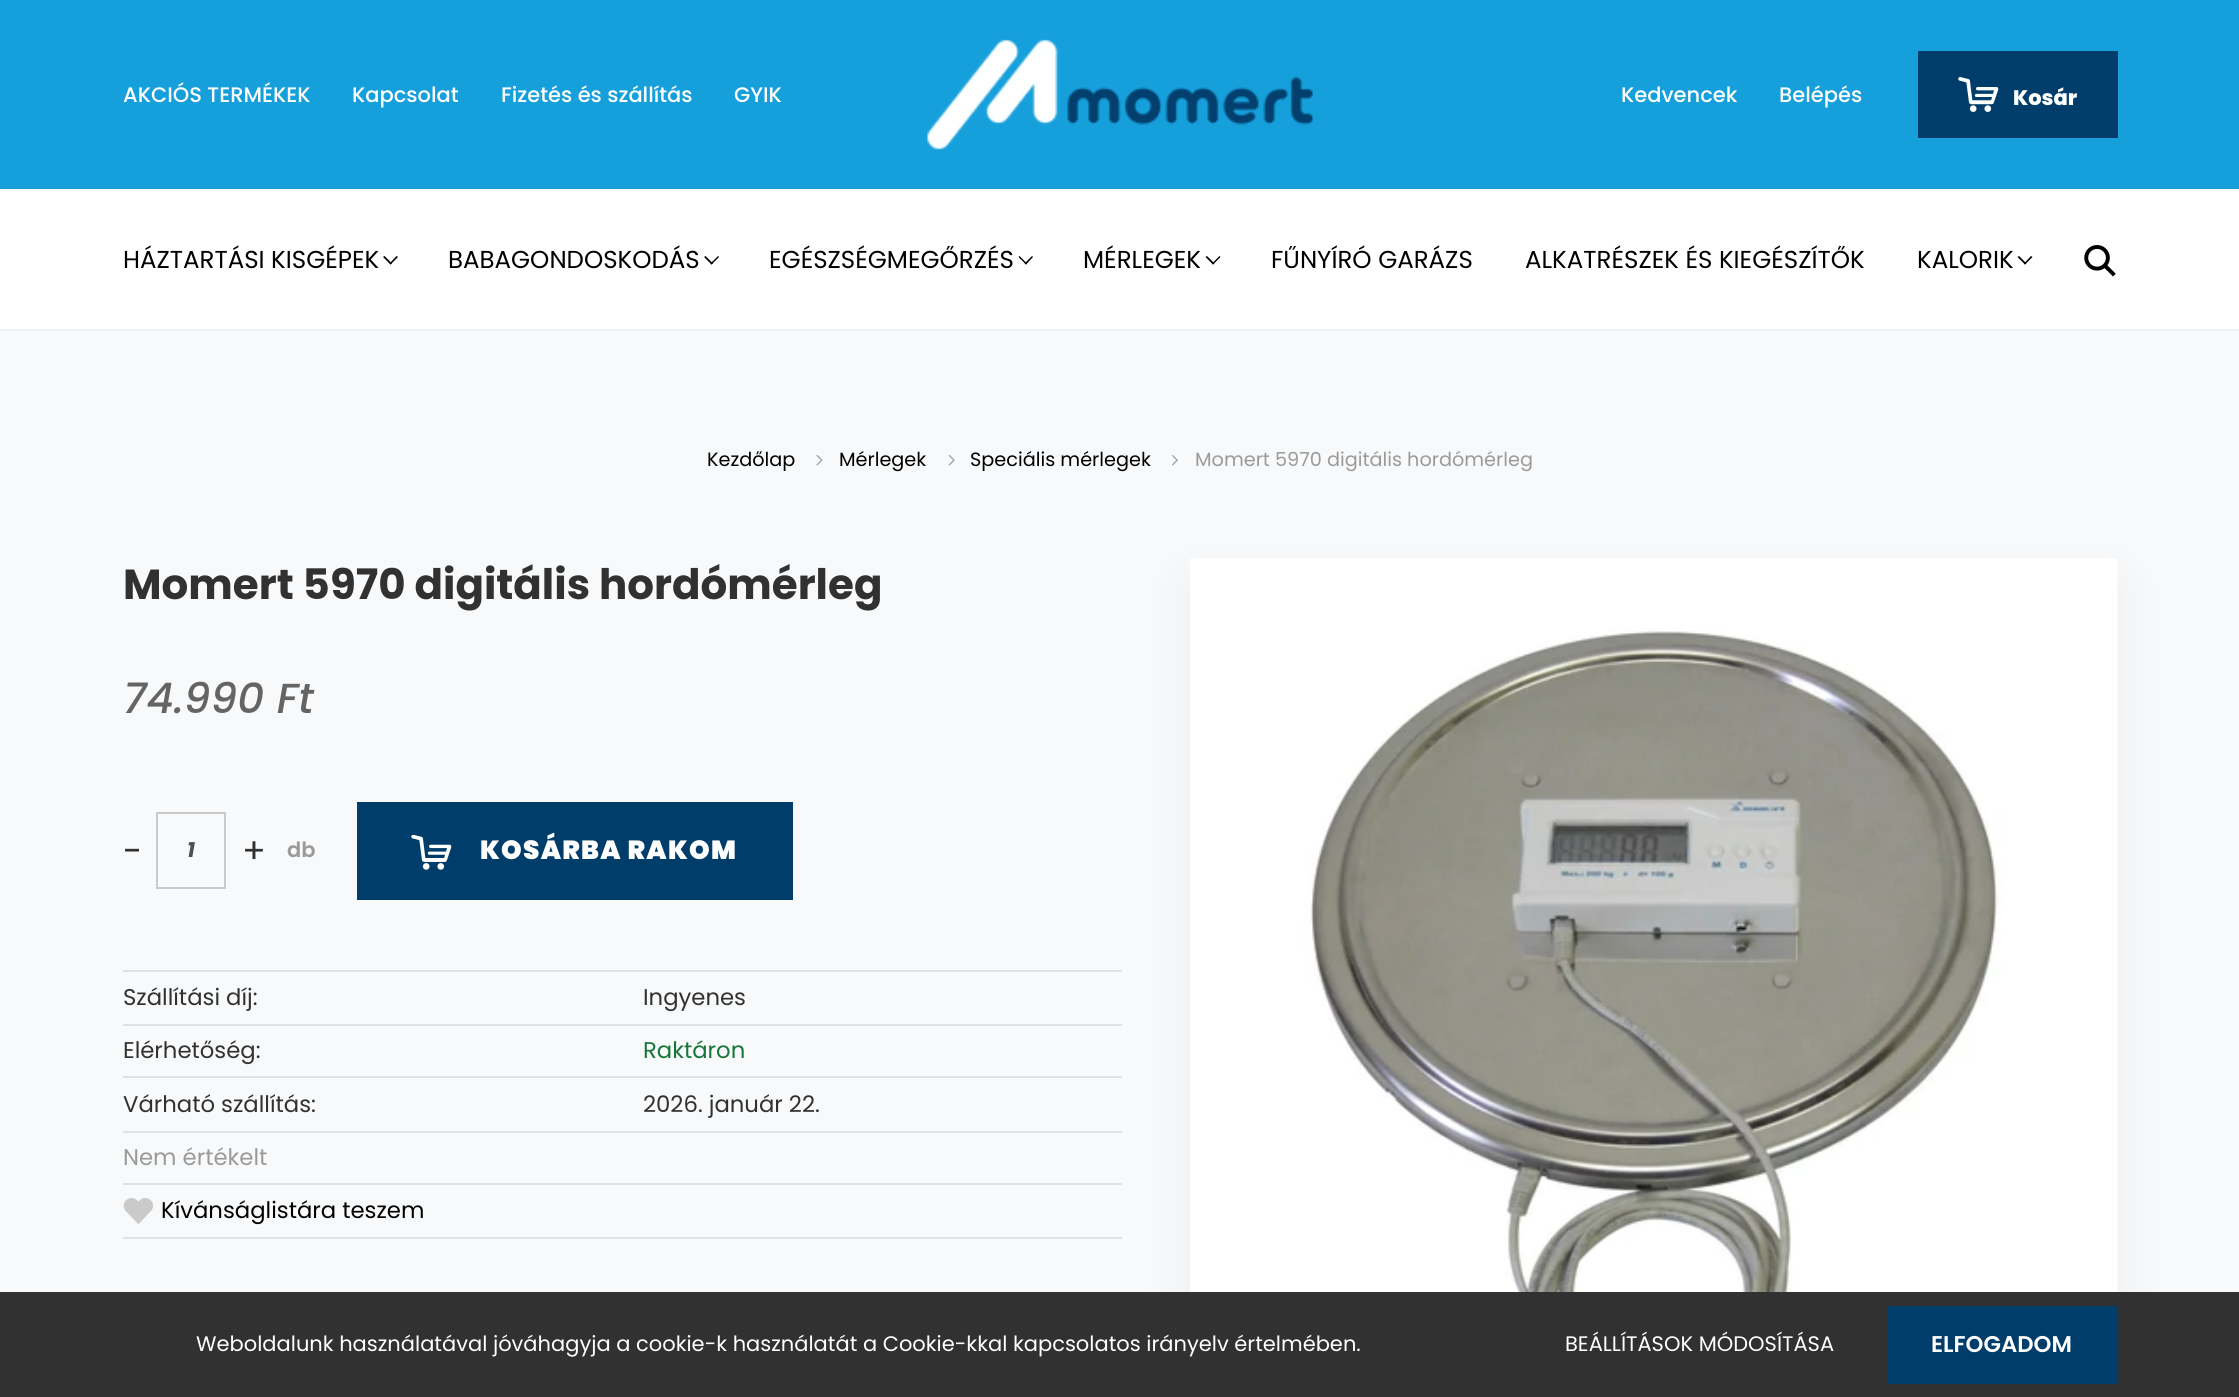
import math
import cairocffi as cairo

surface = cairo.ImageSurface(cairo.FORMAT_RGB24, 2239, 1397)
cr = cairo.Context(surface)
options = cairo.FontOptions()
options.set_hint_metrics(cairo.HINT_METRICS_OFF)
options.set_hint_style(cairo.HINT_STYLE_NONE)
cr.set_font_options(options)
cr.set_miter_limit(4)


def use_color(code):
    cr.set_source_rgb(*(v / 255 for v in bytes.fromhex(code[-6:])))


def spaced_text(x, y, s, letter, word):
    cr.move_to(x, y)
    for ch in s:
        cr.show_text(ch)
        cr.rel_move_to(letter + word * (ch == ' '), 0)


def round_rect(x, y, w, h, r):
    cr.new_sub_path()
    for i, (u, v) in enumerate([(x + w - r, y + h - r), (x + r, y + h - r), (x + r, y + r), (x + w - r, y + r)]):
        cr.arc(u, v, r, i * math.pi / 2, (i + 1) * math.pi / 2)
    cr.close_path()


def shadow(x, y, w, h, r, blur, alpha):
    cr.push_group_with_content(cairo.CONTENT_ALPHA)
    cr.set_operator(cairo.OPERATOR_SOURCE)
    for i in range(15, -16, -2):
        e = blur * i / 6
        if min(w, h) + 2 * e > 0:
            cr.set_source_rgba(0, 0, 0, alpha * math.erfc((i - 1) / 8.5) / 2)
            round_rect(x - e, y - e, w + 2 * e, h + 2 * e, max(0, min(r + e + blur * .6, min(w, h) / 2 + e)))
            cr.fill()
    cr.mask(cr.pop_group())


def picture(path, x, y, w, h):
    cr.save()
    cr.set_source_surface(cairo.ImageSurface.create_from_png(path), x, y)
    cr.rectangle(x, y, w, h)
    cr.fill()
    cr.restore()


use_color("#ffffff")
cr.paint()
use_color("#16a0db")
cr.rectangle(0, 0, 2239, 189)
cr.fill()
cr.select_font_face("Poppins Medium")
cr.set_font_size(21)
use_color("#ffffff")
cr.move_to(123, 102)
cr.show_text("AKCIÓS TERMÉKEK")
cr.move_to(352, 102)
cr.show_text("Kapcsolat")
cr.move_to(501, 102)
cr.show_text("Fizetés és szállítás")
cr.move_to(734, 102)
cr.show_text("GYIK")
picture("img1.png", 927, 39, 386, 111)
cr.move_to(1621, 102)
cr.show_text("Kedvencek")
cr.move_to(1779, 102)
cr.show_text("Belépés")
use_color("#003d6b")
cr.rectangle(1918, 51, 200, 87)
cr.fill()
picture("img2.png", 1958, 77, 41, 35)
cr.select_font_face("Poppins ExtraBold")
use_color("#ffffff")
cr.move_to(2013, 105)
cr.show_text("Kosár")
use_color("#eff0f1")
cr.rectangle(0, 329, 2239, 2)
cr.fill()
cr.select_font_face("Poppins")
cr.set_font_size(24.5)
use_color("#000000")
cr.move_to(123, 268)
cr.show_text("HÁZTARTÁSI KISGÉPEK")
cr.new_path()
cr.move_to(396.5, 256)
cr.line_to(398, 257)
cr.line_to(390.5, 264.5)
cr.line_to(389.5, 263.5)
cr.close_path()
cr.fill()
cr.new_path()
cr.move_to(384.5, 256)
cr.line_to(392, 263.5)
cr.line_to(390.5, 264.5)
cr.line_to(383, 257)
cr.close_path()
cr.fill()
cr.move_to(448, 268)
cr.show_text("BABAGONDOSKODÁS")
cr.new_path()
cr.move_to(718, 256)
cr.line_to(719, 257)
cr.line_to(711.5, 264.5)
cr.line_to(710.5, 263.5)
cr.close_path()
cr.fill()
cr.new_path()
cr.move_to(705.5, 256)
cr.line_to(713, 263.5)
cr.line_to(711.5, 264.5)
cr.line_to(704, 257)
cr.close_path()
cr.fill()
cr.move_to(769, 268)
cr.show_text("EGÉSZSÉGMEGŐRZÉS")
cr.new_path()
cr.move_to(1032, 256)
cr.line_to(1033, 257)
cr.line_to(1026, 264.5)
cr.line_to(1024.5, 263.5)
cr.close_path()
cr.fill()
cr.new_path()
cr.move_to(1019.5, 256)
cr.line_to(1027, 263.5)
cr.line_to(1026, 264.5)
cr.line_to(1018.5, 257)
cr.close_path()
cr.fill()
cr.move_to(1083, 268)
cr.show_text("MÉRLEGEK")
cr.new_path()
cr.move_to(1219.5, 256)
cr.line_to(1220.5, 257)
cr.line_to(1213, 264.5)
cr.line_to(1212, 263.5)
cr.close_path()
cr.fill()
cr.new_path()
cr.move_to(1207, 256)
cr.line_to(1214.5, 263.5)
cr.line_to(1213, 264.5)
cr.line_to(1205.5, 257)
cr.close_path()
cr.fill()
cr.move_to(1271, 268)
cr.show_text("FŰNYÍRÓ GARÁZS")
cr.move_to(1525, 268)
cr.show_text("ALKATRÉSZEK ÉS KIEGÉSZÍTŐK")
cr.move_to(1917, 268)
cr.show_text("KALORIK")
cr.new_path()
cr.move_to(2031, 256)
cr.line_to(2032.5, 257)
cr.line_to(2025, 264.5)
cr.line_to(2024, 263.5)
cr.close_path()
cr.fill()
cr.new_path()
cr.move_to(2019, 256)
cr.line_to(2026.5, 263.5)
cr.line_to(2025, 264.5)
cr.line_to(2017.5, 257)
cr.close_path()
cr.fill()
picture("img3.png", 2084, 245, 32, 32)
use_color("#f8f9fa")
cr.rectangle(0, 331, 2239, 961)
cr.fill()
cr.set_font_size(19.25)
use_color("#000000")
cr.move_to(707, 466)
cr.show_text("Kezdőlap")
picture("img4.png", 816, 455, 7, 11)
cr.move_to(839, 466)
cr.show_text("Mérlegek")
picture("img5.png", 948, 455, 7, 11)
cr.move_to(970, 466)
cr.show_text("Speciális mérlegek")
picture("img6.png", 1172, 455, 6, 11)
use_color("#9a9a9a")
cr.move_to(1195, 466)
cr.show_text("Momert 5970 digitális hordómérleg")
cr.select_font_face("Poppins", cairo.FONT_SLANT_NORMAL, cairo.FONT_WEIGHT_BOLD)
cr.set_font_size(42)
use_color("#313131")
cr.move_to(123, 599)
cr.show_text("Momert 5970 digitális hordómérleg")
cr.select_font_face("Poppins Medium", cairo.FONT_SLANT_ITALIC)
use_color("#646464")
cr.move_to(123, 713)
cr.show_text("74.990 Ft")
cr.select_font_face("Poppins")
cr.set_font_size(35)
use_color("#313131")
cr.move_to(123, 863)
cr.show_text("-")
cr.rectangle(157, 813, 68, 75)
use_color("#cacaca")
cr.stroke()
cr.select_font_face("Poppins", cairo.FONT_SLANT_ITALIC, cairo.FONT_WEIGHT_BOLD)
cr.set_font_size(21)
use_color("#495057")
cr.move_to(187, 857)
cr.show_text("1")
cr.select_font_face("Poppins")
cr.set_font_size(35)
use_color("#313131")
cr.move_to(242, 863)
cr.show_text("+")
cr.select_font_face("Poppins SemiBold")
cr.set_font_size(21)
use_color("#9a9a9a")
cr.move_to(287, 857)
cr.show_text("db")
use_color("#003d6b")
cr.rectangle(357, 802, 436, 98)
cr.fill()
picture("img7.png", 411, 835, 41, 35)
cr.select_font_face("Poppins Black")
cr.set_font_size(26.25)
use_color("#ffffff")
spaced_text(480, 859, "KOSÁRBA RAKOM", 1.25, 0)
cr.select_font_face("Poppins")
cr.set_font_size(22.75)
use_color("#313131")
cr.move_to(123, 1005)
cr.show_text("Szállítási díj:")
use_color("#dee2e6")
cr.rectangle(123, 970, 999, 2)
cr.fill()
use_color("#313131")
cr.move_to(643, 1005)
cr.show_text("Ingyenes")
cr.move_to(123, 1058)
cr.show_text("Elérhetőség:")
use_color("#dee2e6")
cr.rectangle(123, 1024, 999, 2)
cr.fill()
use_color("#177537")
cr.move_to(643, 1058)
cr.show_text("Raktáron")
use_color("#313131")
cr.move_to(123, 1112)
cr.show_text("Várható szállítás:")
use_color("#dee2e6")
cr.rectangle(123, 1076, 999, 2)
cr.fill()
use_color("#313131")
cr.move_to(643, 1112)
cr.show_text("2026. január 22.")
use_color("#dee2e6")
cr.rectangle(123, 1131, 999, 2)
cr.fill()
use_color("#9a9a9a")
cr.move_to(123, 1165)
cr.show_text("Nem értékelt")
use_color("#dee2e6")
cr.rectangle(123, 1183, 999, 2)
cr.fill()
cr.rectangle(123, 1237, 999, 2)
cr.fill()
picture("img8.png", 123, 1198, 30, 26)
use_color("#000000")
cr.move_to(161, 1218)
cr.show_text("Kívánságlistára teszem")
use_color("#000000")
shadow(1190, 585, 928, 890, 0, 26, 0.05)
picture("img9.png", 1190, 558, 928, 734)
use_color("#313131")
cr.rectangle(0, 1292, 2239, 105)
cr.fill()
cr.set_font_size(21)
use_color("#ffffff")
cr.move_to(196, 1351)
cr.show_text("Weboldalunk használatával jóváhagyja a cookie-k használatát a Cookie-kkal kapcsolatos irányelv értelmében.")
cr.move_to(1565, 1351)
cr.show_text("BEÁLLÍTÁSOK MÓDOSÍTÁSA")
use_color("#003d6b")
cr.rectangle(1887, 1306, 231, 78)
cr.fill()
cr.select_font_face("Poppins SemiBold")
cr.set_font_size(22.75)
use_color("#ffffff")
cr.move_to(1931, 1352)
cr.show_text("ELFOGADOM")
surface.write_to_png("result.png")
